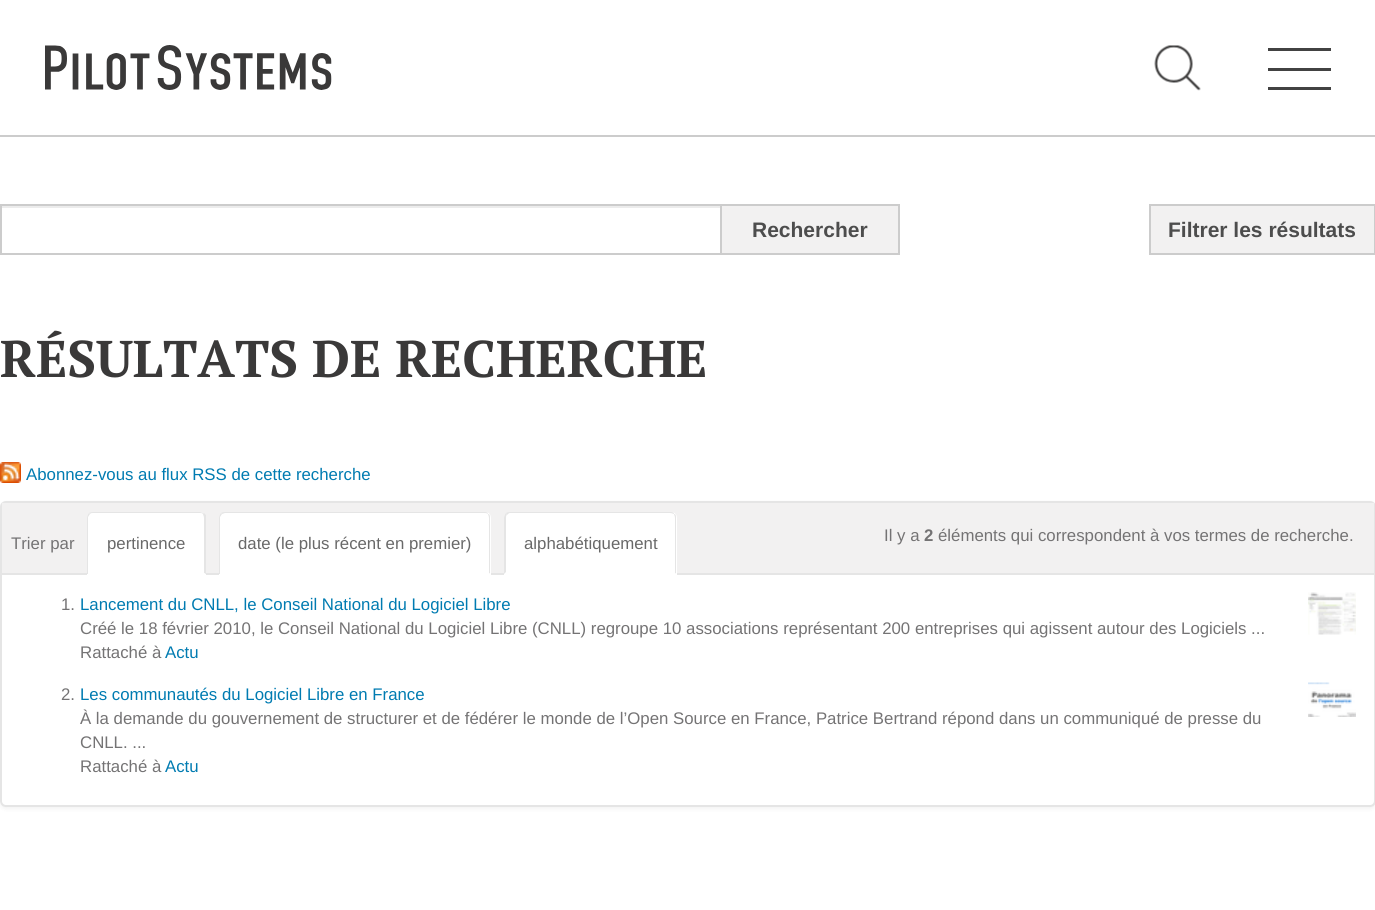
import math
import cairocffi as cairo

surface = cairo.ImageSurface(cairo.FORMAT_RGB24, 1375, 910)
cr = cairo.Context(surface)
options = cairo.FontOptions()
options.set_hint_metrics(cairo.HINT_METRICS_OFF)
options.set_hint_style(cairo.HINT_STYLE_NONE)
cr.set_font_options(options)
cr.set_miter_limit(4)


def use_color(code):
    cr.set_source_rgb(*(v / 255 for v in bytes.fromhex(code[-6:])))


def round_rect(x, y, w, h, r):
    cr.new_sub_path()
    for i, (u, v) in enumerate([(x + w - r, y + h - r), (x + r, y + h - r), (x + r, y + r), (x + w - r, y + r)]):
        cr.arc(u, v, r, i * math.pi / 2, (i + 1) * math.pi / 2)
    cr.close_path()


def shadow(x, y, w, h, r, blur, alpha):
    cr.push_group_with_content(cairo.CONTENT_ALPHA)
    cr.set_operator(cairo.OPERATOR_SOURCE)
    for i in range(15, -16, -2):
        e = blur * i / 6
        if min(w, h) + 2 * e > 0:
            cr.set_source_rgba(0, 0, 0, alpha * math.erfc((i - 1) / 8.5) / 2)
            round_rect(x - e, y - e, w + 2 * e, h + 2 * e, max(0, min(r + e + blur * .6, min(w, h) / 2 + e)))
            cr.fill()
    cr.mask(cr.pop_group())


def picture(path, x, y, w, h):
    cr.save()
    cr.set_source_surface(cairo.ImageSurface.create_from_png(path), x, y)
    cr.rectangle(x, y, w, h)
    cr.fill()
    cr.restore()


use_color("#ffffff")
cr.paint()
use_color("#cccccc")
cr.rectangle(0, 135, 1375, 2)
cr.fill()
picture("img1.png", 45, 45, 287, 45)
picture("img2.png", 1154, 45, 47, 46)
use_color("#424242")
cr.rectangle(1268, 48, 63, 3)
cr.fill()
cr.rectangle(1268, 68, 63, 3)
cr.fill()
cr.rectangle(1268, 87, 63, 3)
cr.fill()
use_color("#ececec")
cr.rectangle(2, 206, 718, 2)
cr.fill()
use_color("#f2f1f1")
cr.rectangle(721, 205, 178, 49)
cr.fill_preserve()
use_color("#cccccc")
cr.stroke()
cr.rectangle(1, 205, 720, 49)
cr.stroke()
cr.select_font_face("Liberation Sans", cairo.FONT_SLANT_NORMAL, cairo.FONT_WEIGHT_BOLD)
cr.set_font_size(21)
use_color("#4d4d4d")
cr.move_to(752, 237)
cr.show_text("Rechercher")
use_color("#f2f1f1")
cr.rectangle(1150, 205, 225, 49)
cr.fill_preserve()
use_color("#cccccc")
cr.stroke()
use_color("#4d4d4d")
cr.move_to(1168, 237)
cr.show_text("Filtrer les résultats")
cr.select_font_face("PT Serif", cairo.FONT_SLANT_NORMAL, cairo.FONT_WEIGHT_BOLD)
cr.set_font_size(51.6)
use_color("#3a3939")
cr.move_to(0, 377)
cr.show_text("RÉSULTATS DE RECHERCHE")
picture("img3.png", 0, 462, 21, 21)
cr.select_font_face("Liberation Sans")
cr.set_font_size(16.8)
use_color("#007bb1")
cr.move_to(26, 480)
cr.show_text("Abonnez-vous au flux RSS de cette recherche")
use_color("#000000")
shadow(0, 503, 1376, 306, 6, 2, 0.05)
use_color("#ffffff")
round_rect(1, 502, 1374, 304, 5)
cr.fill_preserve()
use_color("#e5e5e5")
cr.stroke()
use_color("#f2f1f1")
cr.rectangle(2, 503, 1372, 70)
cr.fill()
use_color("#747374")
cr.move_to(884, 541)
cr.show_text("Il y a")
cr.select_font_face("Liberation Sans", cairo.FONT_SLANT_NORMAL, cairo.FONT_WEIGHT_BOLD)
cr.move_to(924, 541)
cr.show_text("2")
cr.select_font_face("Liberation Sans")
cr.move_to(938, 541)
cr.show_text("éléments qui correspondent à vos termes de recherche.")
use_color("#e5e5e5")
cr.rectangle(2, 573, 1372, 2)
cr.fill()
use_color("#747374")
cr.move_to(11, 549)
cr.show_text("Trier par")
use_color("#ffffff")
cr.new_path()
cr.move_to(93, 512)
cr.line_to(200, 512)
cr.curve_to(203.5, 512, 206, 514.5, 206, 518)
cr.line_to(206, 575)
cr.line_to(87, 575)
cr.line_to(87, 518)
cr.curve_to(87, 514.5, 89.5, 512, 93, 512)
cr.close_path()
cr.fill()
use_color("#e5e5e5")
cr.new_path()
cr.move_to(93, 512)
cr.curve_to(92, 512, 90, 512, 89, 513)
cr.line_to(90, 514)
cr.curve_to(91, 513, 92, 513, 93, 513)
cr.line_to(200, 513)
cr.curve_to(201, 513, 202, 513, 203, 514)
cr.line_to(204, 513)
cr.line_to(200, 512)
cr.close_path()
cr.fill()
cr.new_path()
cr.move_to(204, 513)
cr.line_to(206, 515)
cr.line_to(206, 574)
cr.line_to(204, 573)
cr.line_to(204, 518)
cr.curve_to(204, 516, 203, 515, 203, 514)
cr.close_path()
cr.fill()
use_color("#ffffff")
cr.new_path()
cr.move_to(205, 574)
cr.line_to(88, 574)
cr.line_to(88, 573)
cr.line_to(204, 573)
cr.close_path()
cr.fill()
use_color("#e5e5e5")
cr.new_path()
cr.move_to(87, 518)
cr.line_to(87, 574)
cr.line_to(88, 574)
cr.line_to(88, 573)
cr.line_to(88, 517)
cr.line_to(90, 514)
cr.line_to(89, 513)
cr.curve_to(88, 514, 87, 516, 87, 518)
cr.close_path()
cr.fill()
use_color("#696969")
cr.move_to(107, 549)
cr.show_text("pertinence")
use_color("#ffffff")
cr.new_path()
cr.move_to(225, 512)
cr.line_to(485, 512)
cr.curve_to(488.5, 512, 491, 514.5, 491, 518)
cr.line_to(491, 575)
cr.line_to(219, 575)
cr.line_to(219, 518)
cr.curve_to(219, 514.5, 221.5, 512, 225, 512)
cr.close_path()
cr.fill()
use_color("#e5e5e5")
cr.new_path()
cr.move_to(225, 512)
cr.curve_to(224, 512, 222, 512, 221, 513)
cr.line_to(222, 514)
cr.line_to(225, 513)
cr.line_to(484, 513)
cr.curve_to(485, 513, 487, 513, 488, 514)
cr.curve_to(488, 512, 486, 512, 484, 512)
cr.close_path()
cr.fill()
cr.new_path()
cr.move_to(490, 574)
cr.line_to(490, 518)
cr.curve_to(490, 516, 490, 514, 488, 514)
cr.curve_to(488, 515, 489, 516, 489, 518)
cr.line_to(489, 573)
cr.close_path()
cr.fill()
use_color("#ffffff")
cr.new_path()
cr.move_to(490, 574)
cr.line_to(489, 573)
cr.line_to(220, 573)
cr.line_to(220, 574)
cr.close_path()
cr.fill()
use_color("#e5e5e5")
cr.new_path()
cr.move_to(219, 518)
cr.line_to(219, 574)
cr.line_to(220, 574)
cr.line_to(220, 573)
cr.line_to(220, 517)
cr.line_to(222, 514)
cr.line_to(221, 513)
cr.curve_to(220, 514, 219, 516, 219, 518)
cr.close_path()
cr.fill()
use_color("#696969")
cr.move_to(238, 549)
cr.show_text("date (le plus récent en premier)")
use_color("#ffffff")
cr.new_path()
cr.move_to(510, 512)
cr.line_to(671, 512)
cr.curve_to(674.5, 512, 677, 514.5, 677, 518)
cr.line_to(677, 575)
cr.line_to(504, 575)
cr.line_to(504, 518)
cr.curve_to(504, 514.5, 506.5, 512, 510, 512)
cr.close_path()
cr.fill()
use_color("#e5e5e5")
cr.new_path()
cr.move_to(510, 512)
cr.curve_to(509, 512, 507, 512, 506, 513)
cr.line_to(507, 515)
cr.curve_to(508, 514, 509, 513, 510, 513)
cr.line_to(670, 513)
cr.curve_to(672, 513, 673, 514, 674, 514)
cr.curve_to(674, 512, 672, 512, 670, 512)
cr.close_path()
cr.fill()
cr.new_path()
cr.move_to(676, 574)
cr.line_to(676, 518)
cr.curve_to(676, 516, 676, 514, 674, 514)
cr.curve_to(674, 515, 675, 516, 675, 518)
cr.line_to(675, 573)
cr.close_path()
cr.fill()
use_color("#ffffff")
cr.new_path()
cr.move_to(676, 574)
cr.line_to(675, 573)
cr.line_to(506, 573)
cr.line_to(506, 572)
cr.line_to(504, 574)
cr.close_path()
cr.fill()
use_color("#e5e5e5")
cr.new_path()
cr.move_to(504, 518)
cr.line_to(504, 574)
cr.line_to(506, 572)
cr.line_to(506, 518)
cr.curve_to(506, 517, 506, 515, 507, 515)
cr.line_to(506, 513)
cr.curve_to(505, 514, 504, 516, 504, 518)
cr.close_path()
cr.fill()
use_color("#696969")
cr.move_to(524, 549)
cr.show_text("alphabétiquement")
use_color("#747374")
cr.move_to(61, 610)
cr.show_text("1.")
use_color("#007bb1")
cr.move_to(80, 610)
cr.show_text("Lancement du CNLL, le Conseil National du Logiciel Libre")
picture("img4.png", 1308, 592, 48, 43)
use_color("#747374")
cr.move_to(80, 634)
cr.show_text("Créé le 18 février 2010, le Conseil National du Logiciel Libre (CNLL) regroupe 10 associations représentant 200 entreprises qui agissent autour des Logiciels ...")
cr.move_to(80, 658)
cr.show_text("Rattaché à")
use_color("#007bb1")
cr.move_to(165, 658)
cr.show_text("Actu")
use_color("#747374")
cr.move_to(61, 700)
cr.show_text("2.")
use_color("#007bb1")
cr.move_to(80, 700)
cr.show_text("Les communautés du Logiciel Libre en France")
picture("img5.png", 1308, 682, 48, 35)
use_color("#747374")
cr.move_to(80, 724)
cr.show_text("À la demande du gouvernement de structurer et de fédérer le monde de l’Open Source en France, Patrice Bertrand répond dans un communiqué de presse du")
cr.move_to(80, 748)
cr.show_text("CNLL. ...")
cr.move_to(80, 772)
cr.show_text("Rattaché à")
use_color("#007bb1")
cr.move_to(165, 772)
cr.show_text("Actu")
surface.write_to_png("result.png")
